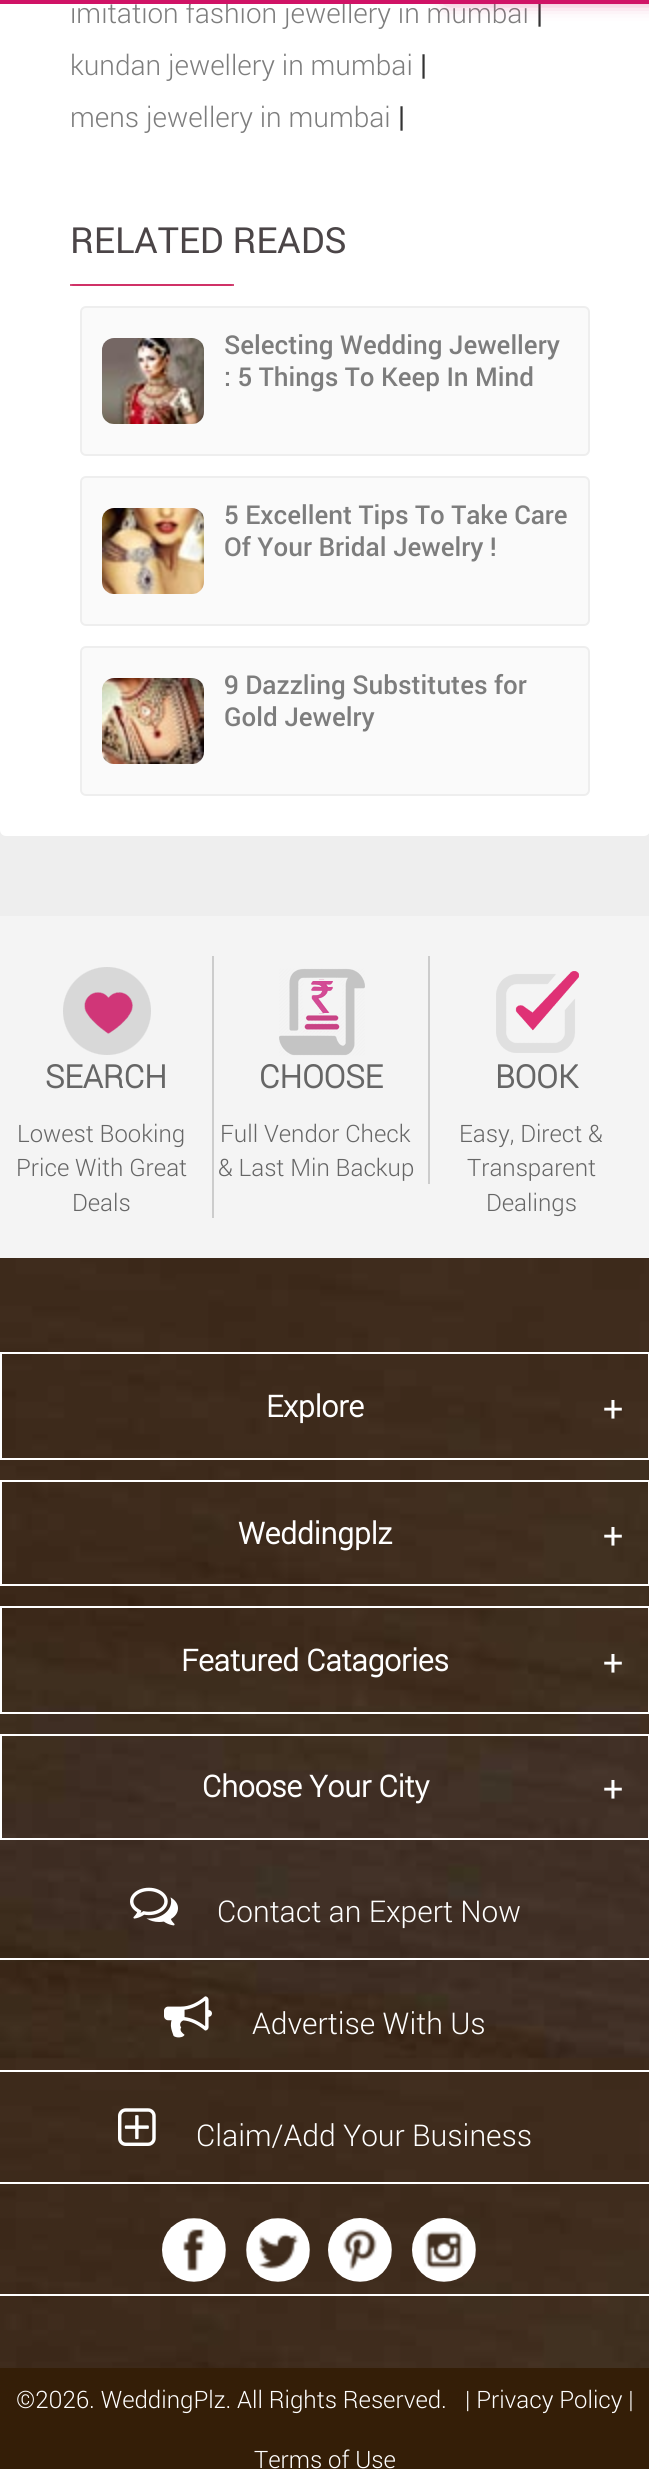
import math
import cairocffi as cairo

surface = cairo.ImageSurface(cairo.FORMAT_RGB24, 649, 2469)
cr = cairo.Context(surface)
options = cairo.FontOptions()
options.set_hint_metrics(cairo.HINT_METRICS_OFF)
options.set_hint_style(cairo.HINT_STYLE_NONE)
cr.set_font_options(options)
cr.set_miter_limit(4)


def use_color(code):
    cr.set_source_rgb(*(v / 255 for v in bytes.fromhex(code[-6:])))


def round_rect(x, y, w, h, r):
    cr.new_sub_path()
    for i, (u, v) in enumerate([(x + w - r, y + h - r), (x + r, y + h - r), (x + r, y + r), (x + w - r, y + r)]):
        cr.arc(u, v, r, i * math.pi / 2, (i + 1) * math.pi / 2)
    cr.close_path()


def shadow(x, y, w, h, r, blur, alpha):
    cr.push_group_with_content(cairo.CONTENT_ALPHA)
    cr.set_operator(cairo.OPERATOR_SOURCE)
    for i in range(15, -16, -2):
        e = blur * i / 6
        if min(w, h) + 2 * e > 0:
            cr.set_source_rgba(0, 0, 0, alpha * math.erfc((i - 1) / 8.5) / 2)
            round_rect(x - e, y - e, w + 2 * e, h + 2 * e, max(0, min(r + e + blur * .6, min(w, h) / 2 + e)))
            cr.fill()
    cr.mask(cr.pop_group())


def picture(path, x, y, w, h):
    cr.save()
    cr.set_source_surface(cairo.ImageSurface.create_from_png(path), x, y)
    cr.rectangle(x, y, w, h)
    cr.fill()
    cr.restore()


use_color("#eeeeee")
cr.paint()
use_color("#ffffff")
round_rect(0, -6, 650, 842, 6)
cr.fill()
cr.select_font_face("Roboto Light")
cr.set_font_size(28)
use_color("#7d7d7d")
cr.move_to(70, 23)
cr.show_text("imitation fashion jewellery in mumbai")
cr.select_font_face("Roboto", cairo.FONT_SLANT_NORMAL, cairo.FONT_WEIGHT_BOLD)
use_color("#333333")
cr.move_to(536, 23)
cr.show_text("|")
use_color("#d01366")
cr.rectangle(0, 0, 649, 4)
cr.fill()
use_color("#d01366")
shadow(450, -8, 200, 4, 0, 10, 1)
cr.select_font_face("Roboto Light")
use_color("#7d7d7d")
cr.move_to(70, 75)
cr.show_text("kundan jewellery in mumbai")
cr.select_font_face("Roboto", cairo.FONT_SLANT_NORMAL, cairo.FONT_WEIGHT_BOLD)
use_color("#333333")
cr.move_to(420, 75)
cr.show_text("|")
cr.select_font_face("Roboto Light")
use_color("#7d7d7d")
cr.move_to(70, 127)
cr.show_text("mens jewellery in mumbai")
cr.select_font_face("Roboto", cairo.FONT_SLANT_NORMAL, cairo.FONT_WEIGHT_BOLD)
use_color("#333333")
cr.move_to(398, 127)
cr.show_text("|")
picture("img1.png", 70, 284, 164, 2)
cr.select_font_face("Roboto")
cr.set_font_size(36)
use_color("#4b4547")
cr.move_to(70, 253)
cr.show_text("RELATED READS")
use_color("#fafafa")
round_rect(81, 307, 508, 148, 5)
cr.fill_preserve()
use_color("#eeeeee")
cr.stroke()
picture("img2.png", 102, 338, 102, 86)
cr.select_font_face("Roboto Medium")
cr.set_font_size(26)
use_color("#7d7d7d")
cr.move_to(224, 354)
cr.show_text("Selecting Wedding Jewellery")
cr.move_to(224, 386)
cr.show_text(": 5 Things To Keep In Mind")
use_color("#fafafa")
round_rect(81, 477, 508, 148, 5)
cr.fill_preserve()
use_color("#eeeeee")
cr.stroke()
picture("img3.png", 102, 508, 102, 86)
use_color("#7d7d7d")
cr.move_to(224, 524)
cr.show_text("5 Excellent Tips To Take Care")
cr.move_to(224, 556)
cr.show_text("Of Your Bridal Jewelry !")
use_color("#fafafa")
round_rect(81, 647, 508, 148, 5)
cr.fill_preserve()
use_color("#eeeeee")
cr.stroke()
picture("img4.png", 102, 678, 102, 86)
use_color("#7d7d7d")
cr.move_to(224, 694)
cr.show_text("9 Dazzling Substitutes for")
cr.move_to(224, 726)
cr.show_text("Gold Jewelry")
use_color("#f4f4f4")
cr.rectangle(0, 916, 649, 342)
cr.fill()
use_color("#cccccc")
cr.rectangle(212, 956, 2, 262)
cr.fill()
picture("img5.png", 63, 967, 88, 88)
cr.select_font_face("Roboto", cairo.FONT_SLANT_NORMAL, cairo.FONT_WEIGHT_BOLD)
cr.set_font_size(32)
use_color("#666666")
cr.move_to(45, 1088)
cr.show_text("SEARCH")
cr.select_font_face("Roboto Light")
cr.set_font_size(24)
cr.move_to(17, 1142)
cr.show_text("Lowest Booking")
cr.move_to(16, 1176)
cr.show_text("Price With Great")
cr.move_to(72, 1211)
cr.show_text("Deals")
use_color("#cccccc")
cr.rectangle(428, 956, 2, 228)
cr.fill()
picture("img6.png", 279, 968, 86, 88)
cr.select_font_face("Roboto", cairo.FONT_SLANT_NORMAL, cairo.FONT_WEIGHT_BOLD)
cr.set_font_size(32)
use_color("#666666")
cr.move_to(259, 1088)
cr.show_text("CHOOSE")
cr.select_font_face("Roboto Light")
cr.set_font_size(24)
cr.move_to(220, 1142)
cr.show_text("Full Vendor Check")
cr.move_to(218, 1176)
cr.show_text("& Last Min Backup")
picture("img7.png", 496, 971, 83, 82)
cr.select_font_face("Roboto", cairo.FONT_SLANT_NORMAL, cairo.FONT_WEIGHT_BOLD)
cr.set_font_size(32)
cr.move_to(495, 1088)
cr.show_text("BOOK")
cr.select_font_face("Roboto Light")
cr.set_font_size(24)
cr.move_to(459, 1142)
cr.show_text("Easy, Direct &")
cr.move_to(467, 1176)
cr.show_text("Transparent")
cr.move_to(486, 1211)
cr.show_text("Dealings")
picture("img8.png", 0, 1258, 649, 1110)
cr.rectangle(1, 1353, 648, 106)
use_color("#ffffff")
cr.stroke()
cr.select_font_face("Roboto", cairo.FONT_SLANT_NORMAL, cairo.FONT_WEIGHT_BOLD)
cr.set_font_size(30)
cr.move_to(266, 1417)
cr.show_text("Explore")
cr.set_font_size(34)
cr.move_to(603, 1421)
cr.show_text("+")
cr.rectangle(1, 1481, 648, 104)
cr.stroke()
cr.set_font_size(30)
cr.move_to(238, 1544)
cr.show_text("Weddingplz")
cr.set_font_size(34)
cr.move_to(603, 1548)
cr.show_text("+")
cr.rectangle(1, 1607, 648, 106)
cr.stroke()
cr.set_font_size(30)
cr.move_to(181, 1671)
cr.show_text("Featured Catagories")
cr.set_font_size(34)
cr.move_to(603, 1675)
cr.show_text("+")
cr.rectangle(1, 1735, 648, 104)
cr.stroke()
cr.set_font_size(30)
cr.move_to(202, 1797)
cr.show_text("Choose Your City")
cr.set_font_size(34)
cr.move_to(603, 1801)
cr.show_text("+")
cr.rectangle(0, 1958, 649, 2)
cr.fill()
picture("img9.png", 130, 1887, 48, 39)
cr.select_font_face("Roboto Light")
cr.set_font_size(30)
cr.move_to(217, 1922)
cr.show_text("Contact an Expert Now")
cr.rectangle(0, 2070, 649, 2)
cr.fill()
picture("img10.png", 164, 1996, 48, 42)
cr.move_to(252, 2034)
cr.show_text("Advertise With Us")
cr.rectangle(0, 2182, 649, 2)
cr.fill()
picture("img11.png", 118, 2108, 38, 38)
cr.move_to(196, 2146)
cr.show_text("Claim/Add Your Business")
cr.rectangle(0, 2294, 649, 2)
cr.fill()
picture("img12.png", 162, 2218, 64, 64)
picture("img13.png", 246, 2218, 64, 64)
picture("img14.png", 328, 2218, 64, 64)
picture("img15.png", 412, 2218, 64, 64)
use_color("#341e07")
cr.rectangle(0, 2368, 649, 101)
cr.fill()
cr.set_font_size(24)
use_color("#ffffff")
cr.move_to(16, 2408)
cr.show_text("©2026. WeddingPlz. All Rights Reserved.")
cr.move_to(465, 2408)
cr.show_text("| Privacy Policy |")
cr.move_to(254, 2468)
cr.show_text("Terms of Use")
surface.write_to_png("result.png")
